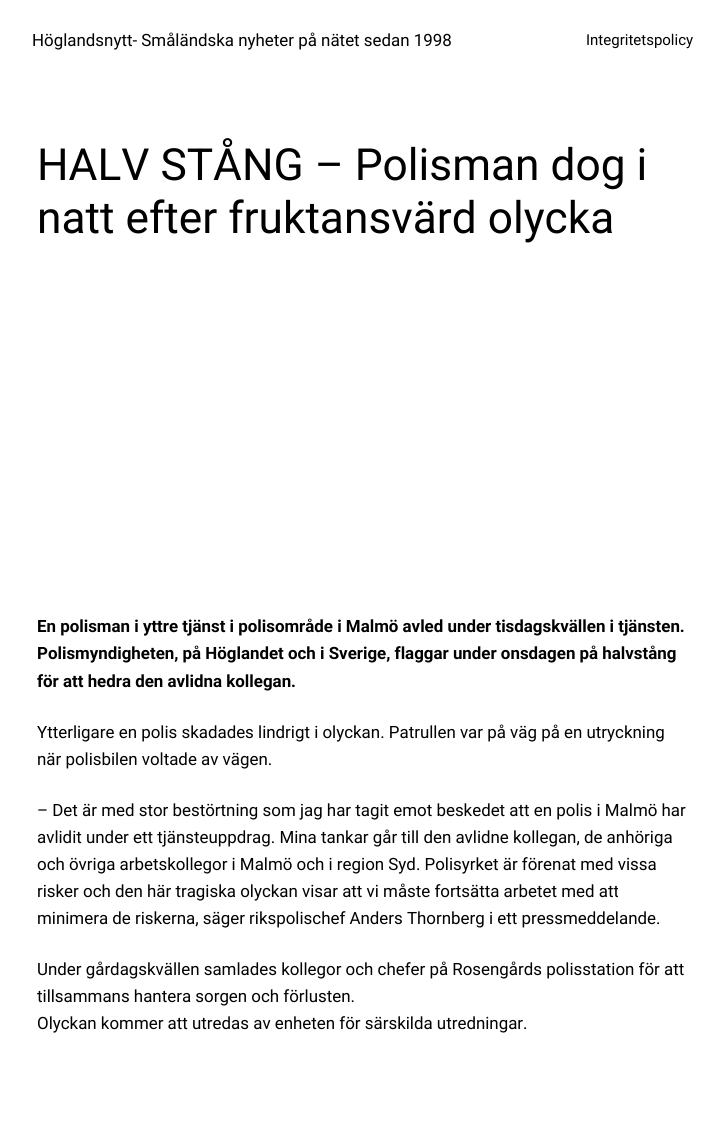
import math
import cairocffi as cairo

surface = cairo.ImageSurface(cairo.FORMAT_RGB24, 724, 1124)
cr = cairo.Context(surface)
options = cairo.FontOptions()
options.set_hint_metrics(cairo.HINT_METRICS_OFF)
options.set_hint_style(cairo.HINT_STYLE_NONE)
cr.set_font_options(options)
cr.set_miter_limit(4)


def use_color(code):
    cr.set_source_rgb(*(v / 255 for v in bytes.fromhex(code[-6:])))


use_color("#ffffff")
cr.paint()
cr.select_font_face("Roboto")
cr.set_font_size(16.9)
use_color("#000000")
cr.move_to(32, 46)
cr.show_text("Höglandsnytt- Småländska nyheter på nätet sedan 1998")
cr.set_font_size(15)
cr.move_to(586, 45)
cr.show_text("Integritetspolicy")
cr.set_font_size(44.25)
cr.move_to(37, 180)
cr.show_text("HALV STÅNG – Polisman dog i")
cr.move_to(37, 233)
cr.show_text("natt efter fruktansvärd olycka")
cr.select_font_face("Roboto", cairo.FONT_SLANT_NORMAL, cairo.FONT_WEIGHT_BOLD)
cr.set_font_size(16.9)
cr.move_to(37, 632)
cr.show_text("En polisman i yttre tjänst i polisområde i Malmö avled under tisdagskvällen i tjänsten.")
cr.move_to(37, 659)
cr.show_text("Polismyndigheten, på Höglandet och i Sverige, flaggar under onsdagen på halvstång")
cr.move_to(37, 687)
cr.show_text("för att hedra den avlidna kollegan.")
cr.select_font_face("Roboto")
cr.move_to(37, 738)
cr.show_text("Ytterligare en polis skadades lindrigt i olyckan. Patrullen var på väg på en utryckning")
cr.move_to(37, 765)
cr.show_text("när polisbilen voltade av vägen.")
cr.move_to(37, 816)
cr.show_text("– Det är med stor bestörtning som jag har tagit emot beskedet att en polis i Malmö har")
cr.move_to(37, 843)
cr.show_text("avlidit under ett tjänsteuppdrag. Mina tankar går till den avlidne kollegan, de anhöriga")
cr.move_to(37, 870)
cr.show_text("och övriga arbetskollegor i Malmö och i region Syd. Polisyrket är förenat med vissa")
cr.move_to(37, 897)
cr.show_text("risker och den här tragiska olyckan visar att vi måste fortsätta arbetet med att")
cr.move_to(37, 924)
cr.show_text("minimera de riskerna, säger rikspolischef Anders Thornberg i ett pressmeddelande.")
cr.move_to(37, 975)
cr.show_text("Under gårdagskvällen samlades kollegor och chefer på Rosengårds polisstation för att")
cr.move_to(37, 1002)
cr.show_text("tillsammans hantera sorgen och förlusten.")
cr.move_to(37, 1029)
cr.show_text("Olyckan kommer att utredas av enheten för särskilda utredningar.")
surface.write_to_png("result.png")
